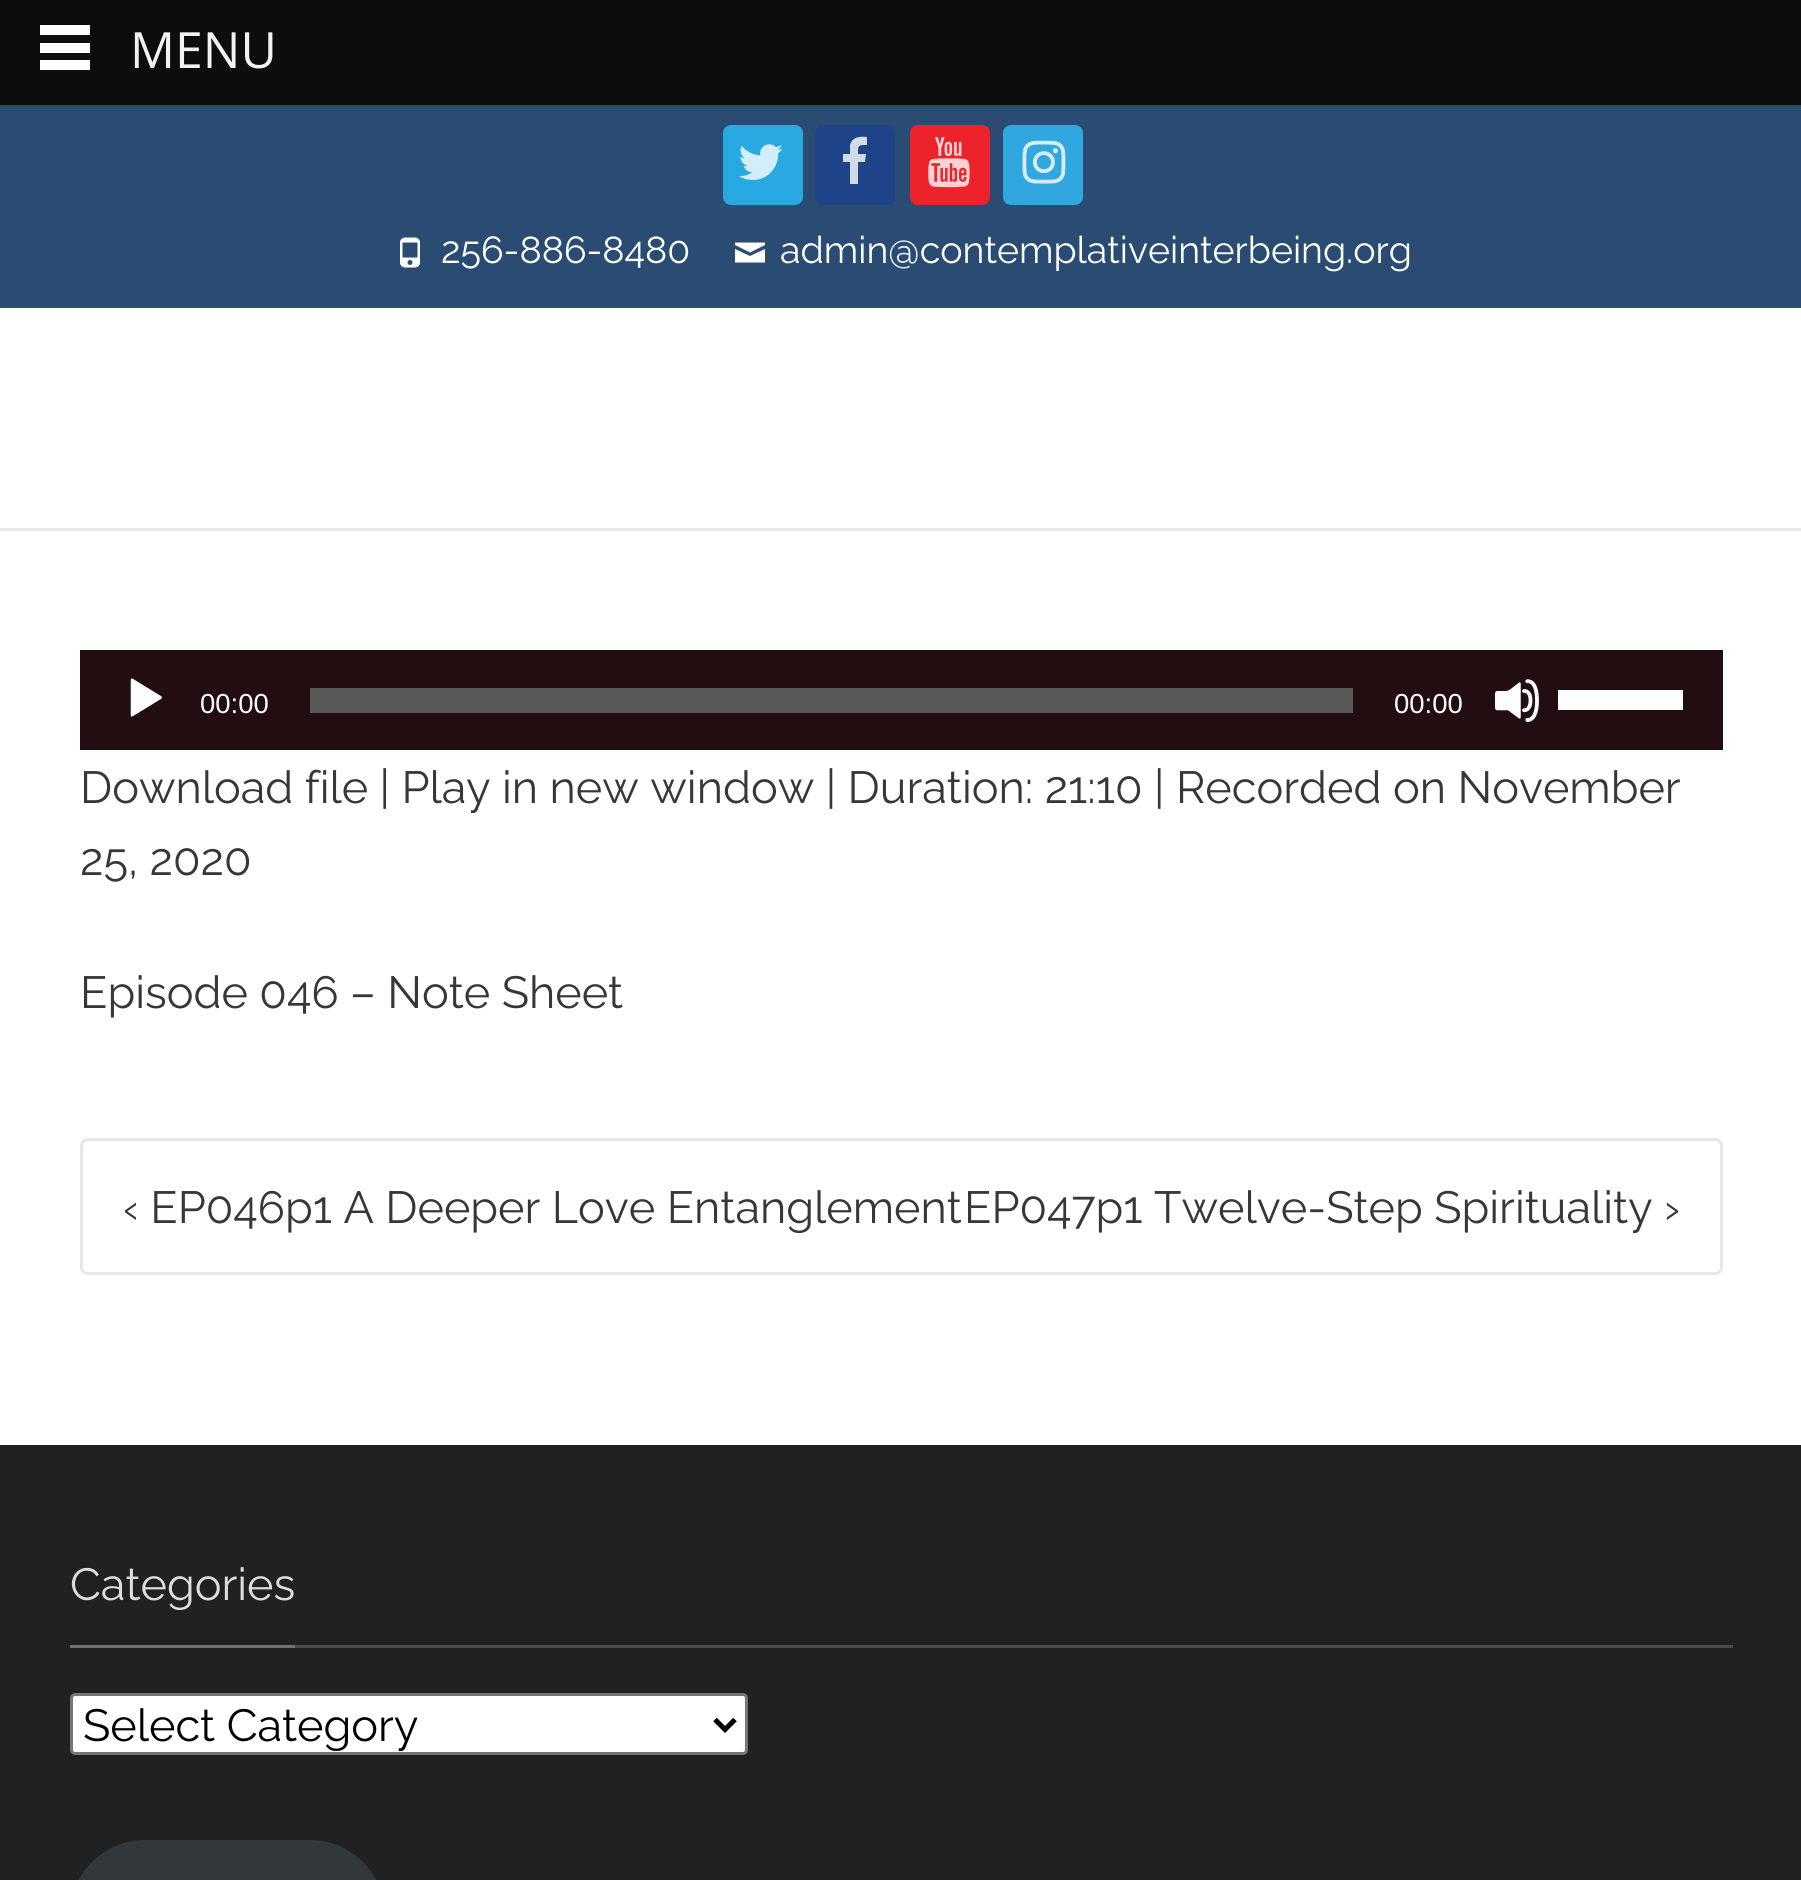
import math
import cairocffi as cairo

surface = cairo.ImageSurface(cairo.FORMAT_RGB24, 1801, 1880)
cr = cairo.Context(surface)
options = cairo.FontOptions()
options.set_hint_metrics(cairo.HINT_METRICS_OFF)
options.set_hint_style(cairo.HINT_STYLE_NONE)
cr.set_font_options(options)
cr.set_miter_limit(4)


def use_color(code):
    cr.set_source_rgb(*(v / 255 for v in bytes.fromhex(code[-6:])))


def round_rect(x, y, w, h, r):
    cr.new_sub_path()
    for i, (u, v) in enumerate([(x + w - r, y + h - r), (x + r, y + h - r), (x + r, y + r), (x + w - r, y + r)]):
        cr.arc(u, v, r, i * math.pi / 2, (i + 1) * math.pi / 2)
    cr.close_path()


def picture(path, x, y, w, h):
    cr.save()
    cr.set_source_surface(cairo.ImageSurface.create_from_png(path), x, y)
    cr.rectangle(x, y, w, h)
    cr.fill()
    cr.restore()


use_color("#ffffff")
cr.paint()
use_color("#0d0d0d")
cr.rectangle(0, 0, 1801, 105)
cr.fill()
use_color("#ffffff")
cr.rectangle(40, 25, 50, 10)
cr.fill()
cr.rectangle(40, 43, 50, 10)
cr.fill()
cr.rectangle(40, 60, 50, 10)
cr.fill()
cr.select_font_face("Open Sans")
cr.set_font_size(50)
use_color("#f2f2f2")
cr.move_to(130, 68)
cr.show_text("MENU")
use_color("#e7e7e7")
cr.rectangle(0, 528, 1801, 3)
cr.fill()
use_color("#2a4b72")
cr.rectangle(0, 105, 1801, 203)
cr.fill()
use_color("#28a9e2")
round_rect(723, 125, 80, 80, 8)
cr.fill()
picture("img1.png", 739, 144, 44, 36)
use_color("#1e4389")
round_rect(815, 125, 80, 80, 8)
cr.fill()
use_color("#d2d9e7")
cr.new_path()
cr.move_to(867, 137)
cr.line_to(867, 145)
cr.curve_to(858, 145, 858, 145, 858, 154)
cr.line_to(866, 154)
cr.line_to(865, 162)
cr.line_to(858, 162)
cr.line_to(858, 184)
cr.line_to(850, 184)
cr.line_to(850, 162)
cr.line_to(843, 162)
cr.line_to(843, 154)
cr.line_to(850, 154)
cr.line_to(850, 146)
cr.curve_to(851, 137, 860, 136, 867, 137)
cr.close_path()
cr.fill()
use_color("#ec232b")
round_rect(910, 125, 80, 80, 8)
cr.fill()
picture("img2.png", 928, 137, 42, 51)
use_color("#30a7df")
round_rect(1003, 125, 80, 80, 8)
cr.fill()
picture("img3.png", 1022, 140, 44, 44)
picture("img4.png", 400, 237, 20, 31)
cr.select_font_face("Raleway Thin")
cr.set_font_size(37.5)
use_color("#ffffff")
cr.move_to(441, 263)
cr.show_text("256-886-8480")
cr.new_path()
cr.move_to(735, 242.5)
cr.line_to(765, 242.5)
cr.line_to(765, 245)
cr.line_to(750, 252.5)
cr.line_to(735, 245)
cr.close_path()
cr.move_to(735, 249)
cr.line_to(750, 256)
cr.line_to(765, 249)
cr.line_to(765, 262.5)
cr.line_to(735, 262.5)
cr.close_path()
cr.fill()
cr.move_to(780, 263)
cr.show_text("admin@contemplativeinterbeing.org")
use_color("#220e10")
cr.rectangle(80, 650, 1643, 100)
cr.fill()
picture("img5.png", 130, 678, 32, 39)
cr.select_font_face("Liberation Sans")
cr.set_font_size(27.5)
use_color("#ffffff")
cr.move_to(200, 713)
cr.show_text("00:00")
use_color("#595959")
cr.rectangle(310, 688, 1043, 25)
cr.fill()
use_color("#ffffff")
cr.move_to(1394, 713)
cr.show_text("00:00")
picture("img6.png", 1495, 679, 44, 43)
cr.rectangle(1558, 690, 125, 20)
cr.fill()
cr.select_font_face("Raleway Thin")
cr.set_font_size(45)
use_color("#373737")
cr.move_to(80, 803)
cr.show_text("Download file | Play in new window | Duration: 21:10 | Recorded on November")
cr.move_to(80, 875)
cr.show_text("25, 2020")
cr.move_to(80, 1008)
cr.show_text("Episode 046 – Note Sheet")
round_rect(81.5, 1139.5, 1640, 134, 6.5)
use_color("#e7e7e7")
cr.set_line_width(3)
cr.stroke()
use_color("#373737")
cr.move_to(123, 1223)
cr.show_text("‹ EP046p1 A Deeper Love Entanglement")
cr.move_to(964, 1223)
cr.show_text("EP047p1 Twelve-Step Spirituality ›")
use_color("#212121")
cr.rectangle(0, 1445, 1801, 435)
cr.fill()
use_color("#4d4d4d")
cr.rectangle(295, 1645, 1438, 3)
cr.fill()
use_color("#717171")
cr.rectangle(70, 1645, 225, 3)
cr.fill()
use_color("#dddddd")
cr.move_to(70, 1600)
cr.show_text("Categories")
use_color("#ffffff")
round_rect(71.5, 1694.5, 675, 59, 3.5)
cr.fill_preserve()
use_color("#767676")
cr.stroke()
cr.new_path()
cr.move_to(715, 1719.5)
cr.line_to(725, 1729.5)
cr.line_to(735, 1719.5)
use_color("#000000")
cr.set_line_width(5)
cr.stroke()
cr.move_to(83, 1741)
cr.show_text("Select Category")
use_color("#32373c")
round_rect(70, 1840, 315, 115, 75)
cr.fill()
surface.write_to_png("result.png")
